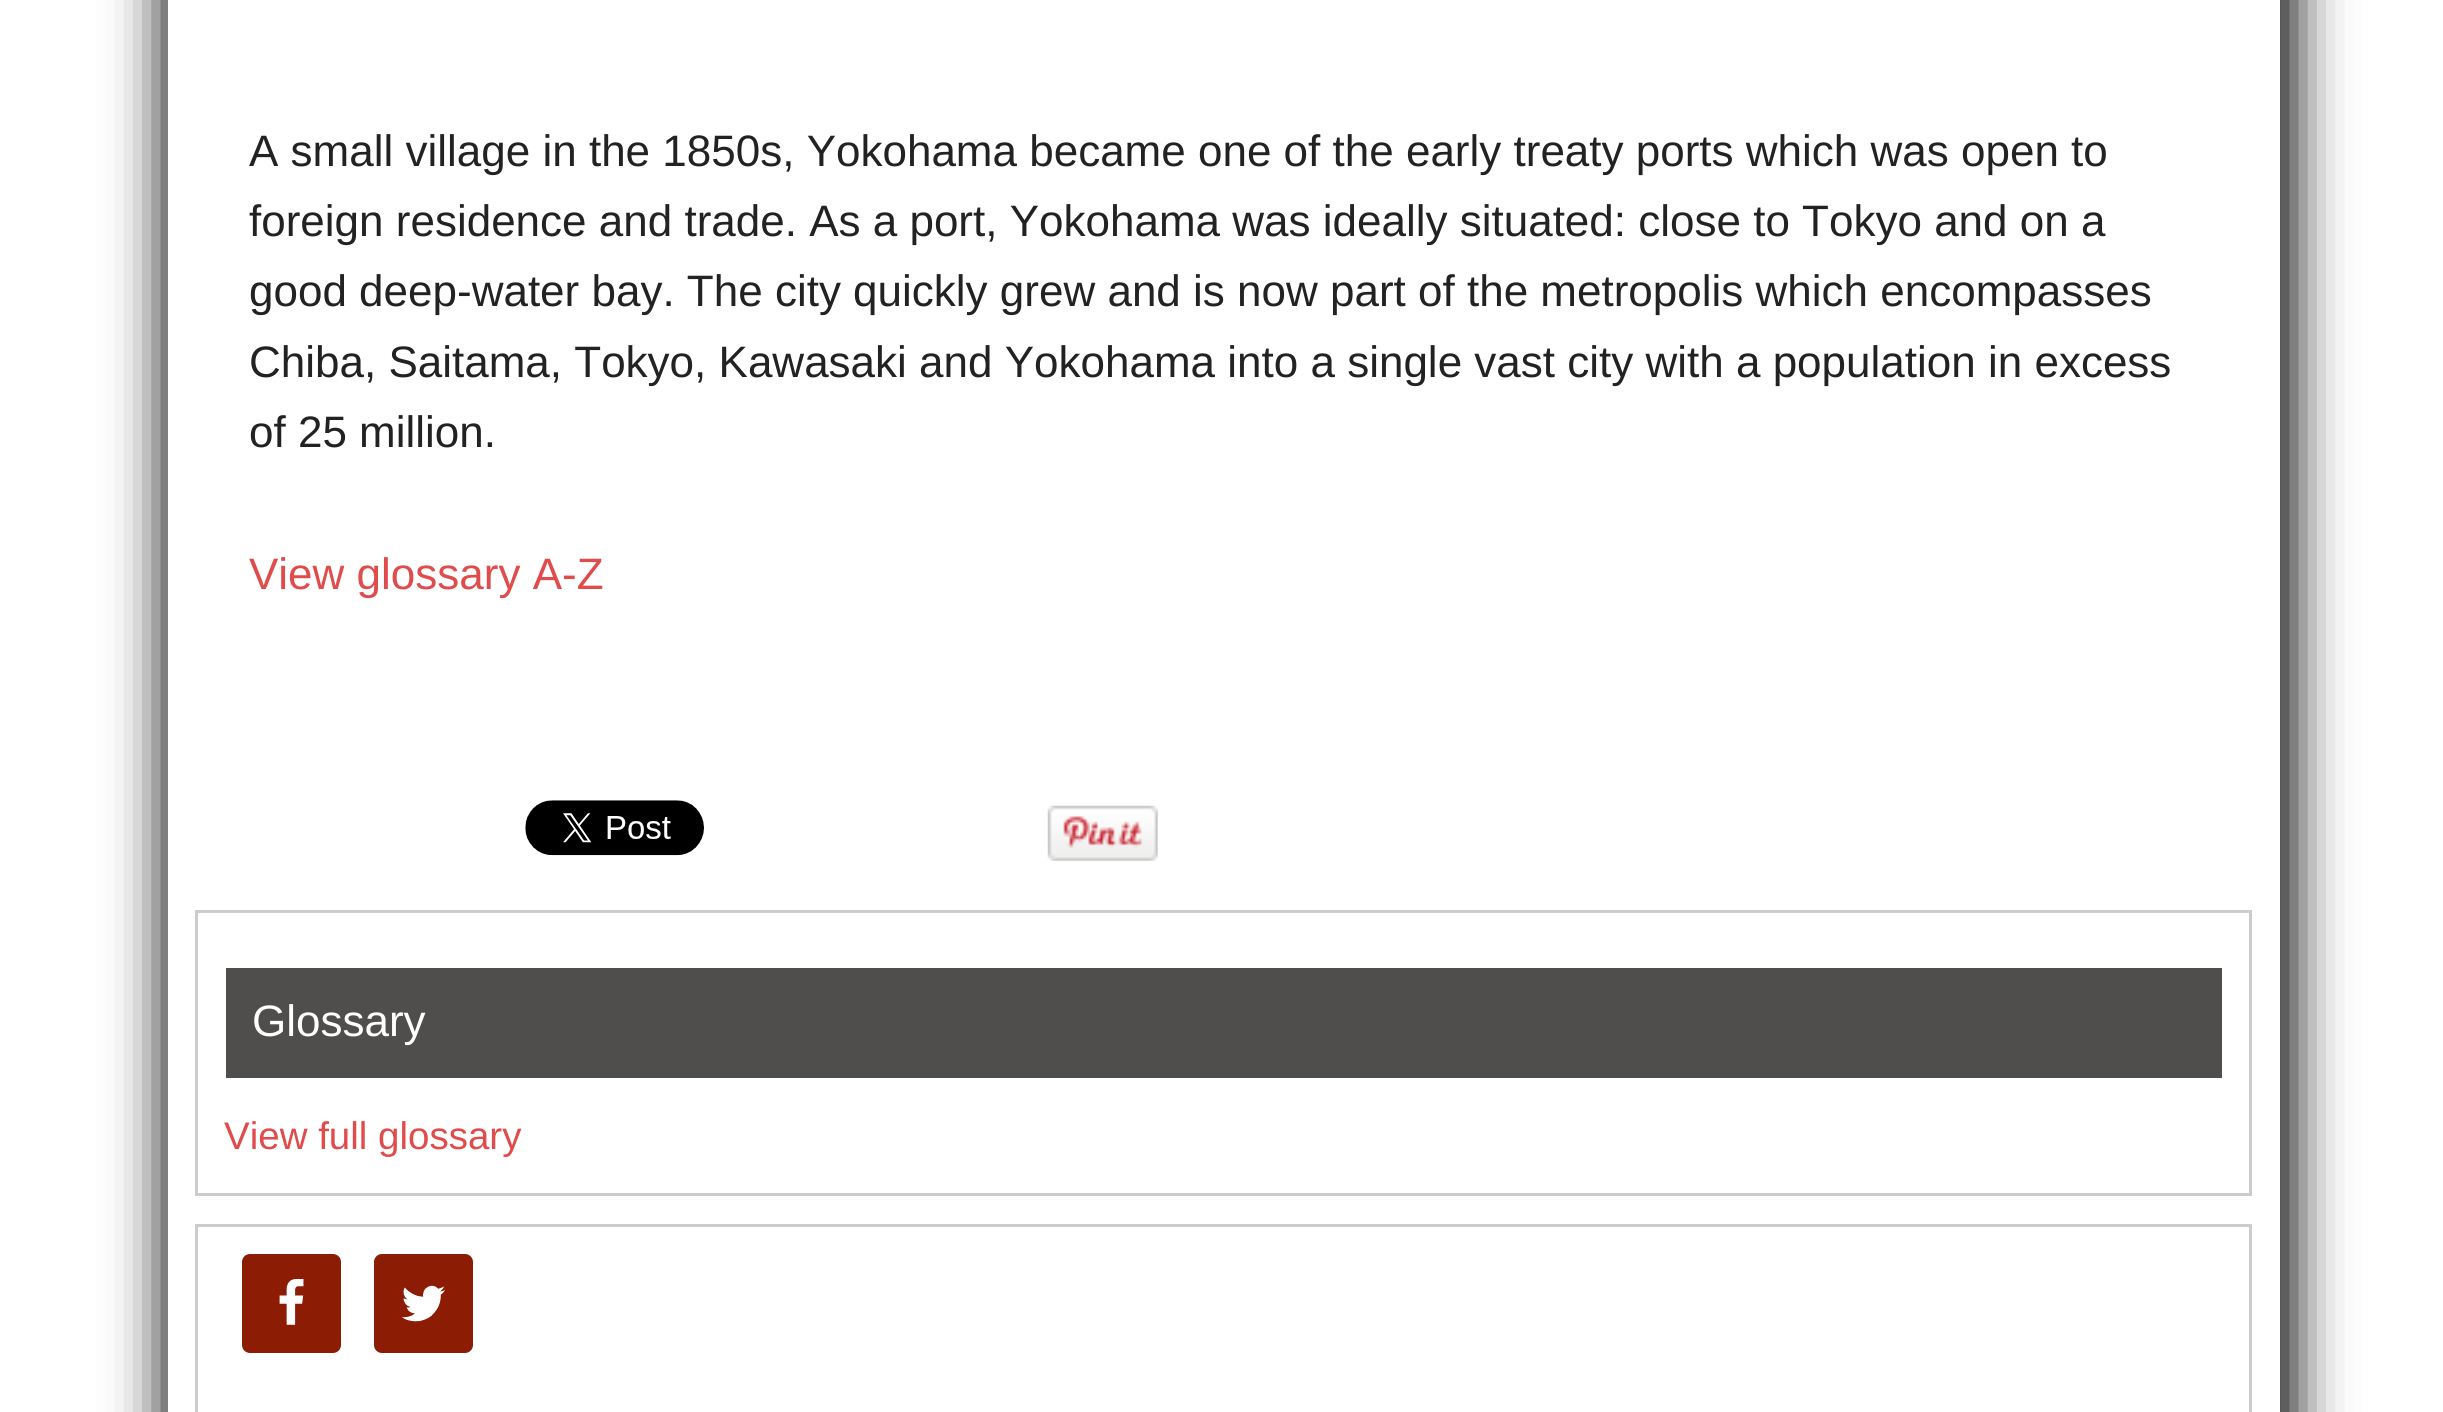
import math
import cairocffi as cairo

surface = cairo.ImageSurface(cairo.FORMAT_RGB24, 2443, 1412)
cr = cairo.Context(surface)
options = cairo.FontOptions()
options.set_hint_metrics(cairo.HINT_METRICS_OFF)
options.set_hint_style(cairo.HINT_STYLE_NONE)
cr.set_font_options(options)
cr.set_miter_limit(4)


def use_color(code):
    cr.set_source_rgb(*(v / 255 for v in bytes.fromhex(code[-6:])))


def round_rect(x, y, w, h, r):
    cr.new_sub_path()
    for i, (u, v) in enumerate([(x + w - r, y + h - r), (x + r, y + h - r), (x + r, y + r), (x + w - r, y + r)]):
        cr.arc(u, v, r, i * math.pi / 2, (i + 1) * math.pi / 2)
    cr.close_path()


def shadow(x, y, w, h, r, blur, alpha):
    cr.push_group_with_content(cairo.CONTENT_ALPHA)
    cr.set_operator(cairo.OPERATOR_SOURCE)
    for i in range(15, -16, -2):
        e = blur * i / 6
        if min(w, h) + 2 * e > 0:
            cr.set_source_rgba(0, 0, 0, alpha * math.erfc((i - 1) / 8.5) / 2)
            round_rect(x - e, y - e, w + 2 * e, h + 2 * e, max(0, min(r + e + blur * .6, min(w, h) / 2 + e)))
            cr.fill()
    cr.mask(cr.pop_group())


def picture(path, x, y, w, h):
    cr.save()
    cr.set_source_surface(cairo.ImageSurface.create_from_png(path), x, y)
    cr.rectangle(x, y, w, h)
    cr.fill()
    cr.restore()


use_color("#ffffff")
cr.paint()
use_color("#000000")
shadow(165, -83, 2129, 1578, 0, 27.5, 1)
use_color("#ffffff")
cr.rectangle(168, 0, 2112, 1412)
cr.fill()
cr.select_font_face("Liberation Sans")
cr.set_font_size(44)
use_color("#222222")
cr.move_to(249, 166)
cr.show_text("A small village in the 1850s, Yokohama became one of the early treaty ports which was open to")
cr.move_to(249, 236)
cr.show_text("foreign residence and trade. As a port, Yokohama was ideally situated: close to Tokyo and on a")
cr.move_to(249, 306)
cr.show_text("good deep-water bay. The city quickly grew and is now part of the metropolis which encompasses")
cr.move_to(249, 377)
cr.show_text("Chiba, Saitama, Tokyo, Kawasaki and Yokohama into a single vast city with a population in excess")
cr.move_to(249, 447)
cr.show_text("of 25 million.")
use_color("#e04b4b")
cr.move_to(249, 589)
cr.show_text("View glossary A-Z")
picture("img1.png", 525, 800, 179, 56)
picture("img2.png", 1047, 805, 111, 56)
cr.rectangle(196.5, 911.5, 2054, 283)
use_color("#cccccc")
cr.set_line_width(3)
cr.stroke()
use_color("#504d4d")
cr.rectangle(226, 968, 1996, 110)
cr.fill()
use_color("#ffffff")
cr.move_to(252, 1036)
cr.show_text("Glossary")
cr.set_font_size(38.5)
use_color("#e04b4b")
cr.move_to(224, 1149)
cr.show_text("View full glossary")
cr.rectangle(196.5, 1225.5, 2054, 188)
use_color("#cccccc")
cr.stroke()
use_color("#8c1c03")
round_rect(242, 1254, 99, 99, 8)
cr.fill()
picture("img3.png", 279, 1279, 25, 46)
round_rect(374, 1254, 99, 99, 8)
cr.fill()
picture("img4.png", 402, 1285, 43, 37)
surface.write_to_png("result.png")
